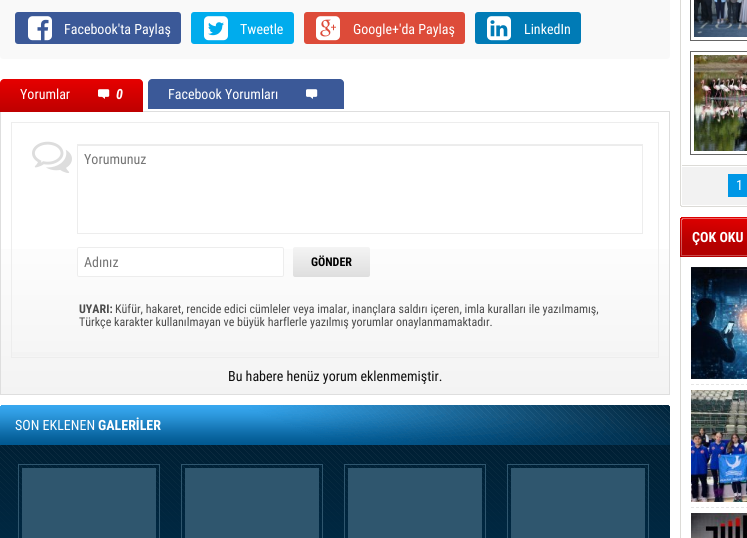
import math
import cairocffi as cairo

surface = cairo.ImageSurface(cairo.FORMAT_RGB24, 747, 538)
cr = cairo.Context(surface)
options = cairo.FontOptions()
options.set_hint_metrics(cairo.HINT_METRICS_OFF)
options.set_hint_style(cairo.HINT_STYLE_NONE)
cr.set_font_options(options)
cr.set_miter_limit(4)


def use_color(code):
    cr.set_source_rgb(*(v / 255 for v in bytes.fromhex(code[-6:])))


def round_rect(x, y, w, h, r):
    cr.new_sub_path()
    for i, (u, v) in enumerate([(x + w - r, y + h - r), (x + r, y + h - r), (x + r, y + r), (x + w - r, y + r)]):
        cr.arc(u, v, r, i * math.pi / 2, (i + 1) * math.pi / 2)
    cr.close_path()


def picture(path, x, y, w, h):
    cr.save()
    cr.set_source_surface(cairo.ImageSurface.create_from_png(path), x, y)
    cr.rectangle(x, y, w, h)
    cr.fill()
    cr.restore()


use_color("#ffffff")
cr.paint()
use_color("#f9f9f9")
round_rect(0, -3, 670, 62, 3)
cr.fill()
use_color("#3b5998")
round_rect(15, 12, 166, 32, 3)
cr.fill()
picture("img1.png", 28, 16, 24, 25)
cr.select_font_face("Roboto Condensed")
cr.set_font_size(14)
use_color("#ffffff")
cr.move_to(64, 34)
cr.show_text("Facebook'ta Paylaş")
use_color("#00aced")
round_rect(191, 12, 103, 32, 3)
cr.fill()
picture("img2.png", 204, 16, 24, 25)
use_color("#ffffff")
cr.move_to(240, 34)
cr.show_text("Tweetle")
use_color("#dd4b39")
round_rect(304, 12, 161, 32, 3)
cr.fill()
picture("img3.png", 316, 16, 24, 25)
use_color("#ffffff")
cr.move_to(353, 34)
cr.show_text("Google+'da Paylaş")
use_color("#007bb6")
round_rect(475, 12, 106, 32, 3)
cr.fill()
picture("img4.png", 487, 16, 24, 25)
use_color("#ffffff")
cr.move_to(524, 34)
cr.show_text("LinkedIn")
gradient = cairo.LinearGradient(335, 112, 335, 394)
gradient.add_color_stop_rgba(0.35, 1, 1, 1, 1)
gradient.add_color_stop_rgba(1, 0.953, 0.953, 0.953, 1)
cr.set_source(gradient)
cr.rectangle(1, 249, 668, 145)
cr.fill()
cr.rectangle(0.5, 111.5, 669, 283)
use_color("#dedede")
cr.set_line_width(1)
cr.stroke()
gradient = cairo.LinearGradient(72, 79, 72, 112)
gradient.add_color_stop_rgba(0, 0.902, 0, 0, 1)
gradient.add_color_stop_rgba(1, 0.745, 0, 0, 1)
cr.set_source(gradient)
cr.new_path()
cr.move_to(4, 79)
cr.line_to(139, 79)
cr.curve_to(141, 79, 143, 81, 143, 83)
cr.line_to(143, 112)
cr.line_to(0, 112)
cr.line_to(0, 83)
cr.curve_to(0, 81, 2, 79, 4, 79)
cr.close_path()
cr.fill()
use_color("#ffffff")
cr.move_to(20, 99)
cr.show_text("Yorumlar")
picture("img5.png", 98, 89, 12, 10)
cr.select_font_face("Roboto Condensed", cairo.FONT_SLANT_ITALIC, cairo.FONT_WEIGHT_BOLD)
cr.move_to(116, 99)
cr.show_text("0")
use_color("#3b5998")
cr.new_path()
cr.move_to(152, 79)
cr.line_to(340, 79)
cr.curve_to(342, 79, 344, 81, 344, 83)
cr.line_to(344, 109)
cr.line_to(148, 109)
cr.line_to(148, 83)
cr.curve_to(148, 81, 150, 79, 152, 79)
cr.close_path()
cr.fill()
cr.select_font_face("Roboto Condensed")
use_color("#ffffff")
cr.move_to(168, 99)
cr.show_text("Facebook Yorumları")
picture("img6.png", 306, 89, 12, 10)
gradient = cairo.LinearGradient(335, 123, 335, 357)
gradient.add_color_stop_rgba(0.5, 1, 1, 1, 1)
gradient.add_color_stop_rgba(1, 0.953, 0.953, 0.953, 1)
cr.set_source(gradient)
cr.rectangle(12, 352, 646, 4)
cr.fill()
cr.rectangle(11.5, 122.5, 647, 235)
use_color("#ededed")
cr.stroke()
picture("img7.png", 32, 141, 40, 32)
use_color("#ececec")
cr.rectangle(78, 145, 564, 1)
cr.fill()
cr.rectangle(77.5, 144.5, 565, 89)
use_color("#ededed")
cr.stroke()
use_color("#757575")
cr.move_to(84, 164)
cr.show_text("Yorumunuz")
use_color("#ffffff")
round_rect(77.5, 247.5, 206, 29, 1.5)
cr.fill_preserve()
use_color("#ededed")
cr.stroke()
use_color("#757575")
cr.move_to(84, 267)
cr.show_text("Adınız")
gradient = cairo.LinearGradient(332, 247, 332, 277)
gradient.add_color_stop_rgba(0, 0.957, 0.957, 0.957, 1)
gradient.add_color_stop_rgba(1, 0.871, 0.871, 0.871, 1)
cr.set_source(gradient)
round_rect(293, 247, 77, 30, 2)
cr.fill()
cr.select_font_face("Roboto Condensed", cairo.FONT_SLANT_NORMAL, cairo.FONT_WEIGHT_BOLD)
cr.set_font_size(12)
use_color("#000000")
cr.move_to(311, 266)
cr.show_text("GÖNDER")
use_color("#4b4b4b")
cr.move_to(79, 313)
cr.show_text("UYARI:")
cr.select_font_face("Roboto Condensed")
cr.move_to(115, 313)
cr.show_text("Küfür, hakaret, rencide edici cümleler veya imalar, inançlara saldırı içeren, imla kuralları ile yazılmamış,")
cr.move_to(79, 326)
cr.show_text("Türkçe karakter kullanılmayan ve büyük harflerle yazılmış yorumlar onaylanmamaktadır.")
cr.set_font_size(14)
use_color("#0f0f0f")
cr.move_to(228, 381)
cr.show_text("Bu habere henüz yorum eklenmemiştir.")
picture("img8.png", 0, 405, 670, 133)
use_color("#ffffff")
cr.move_to(15, 430)
cr.show_text("SON EKLENEN")
cr.select_font_face("Roboto Condensed", cairo.FONT_SLANT_NORMAL, cairo.FONT_WEIGHT_BOLD)
cr.move_to(98, 430)
cr.show_text("GALERİLER")
use_color("#dcdbd7")
cr.rectangle(680, 0, 1, 205)
cr.fill()
cr.rectangle(690.5, -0.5, 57, 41)
use_color("#656565")
cr.stroke()
picture("img9.png", 694, 0, 53, 37)
cr.rectangle(690.5, 51.5, 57, 103)
cr.stroke()
picture("img10.png", 694, 55, 53, 96)
picture("img11.png", 682, 165, 65, 40)
use_color("#0097e6")
cr.rectangle(728, 174, 19, 23)
cr.fill()
cr.select_font_face("Roboto Condensed")
use_color("#ffffff")
cr.move_to(736, 190)
cr.show_text("1")
picture("img12.png", 680, 205, 67, 2)
picture("img13.png", 680, 217, 67, 40)
cr.select_font_face("Roboto Condensed", cairo.FONT_SLANT_NORMAL, cairo.FONT_WEIGHT_BOLD)
cr.move_to(692, 242)
cr.show_text("ÇOK OKU")
use_color("#dcdbd7")
cr.rectangle(680, 257, 1, 281)
cr.fill()
picture("img14.png", 691, 267, 56, 112)
picture("img15.png", 691, 384, 56, 1)
picture("img16.png", 691, 390, 56, 112)
picture("img15.png", 691, 507, 56, 1)
picture("img17.png", 691, 513, 56, 25)
surface.write_to_png("result.png")
